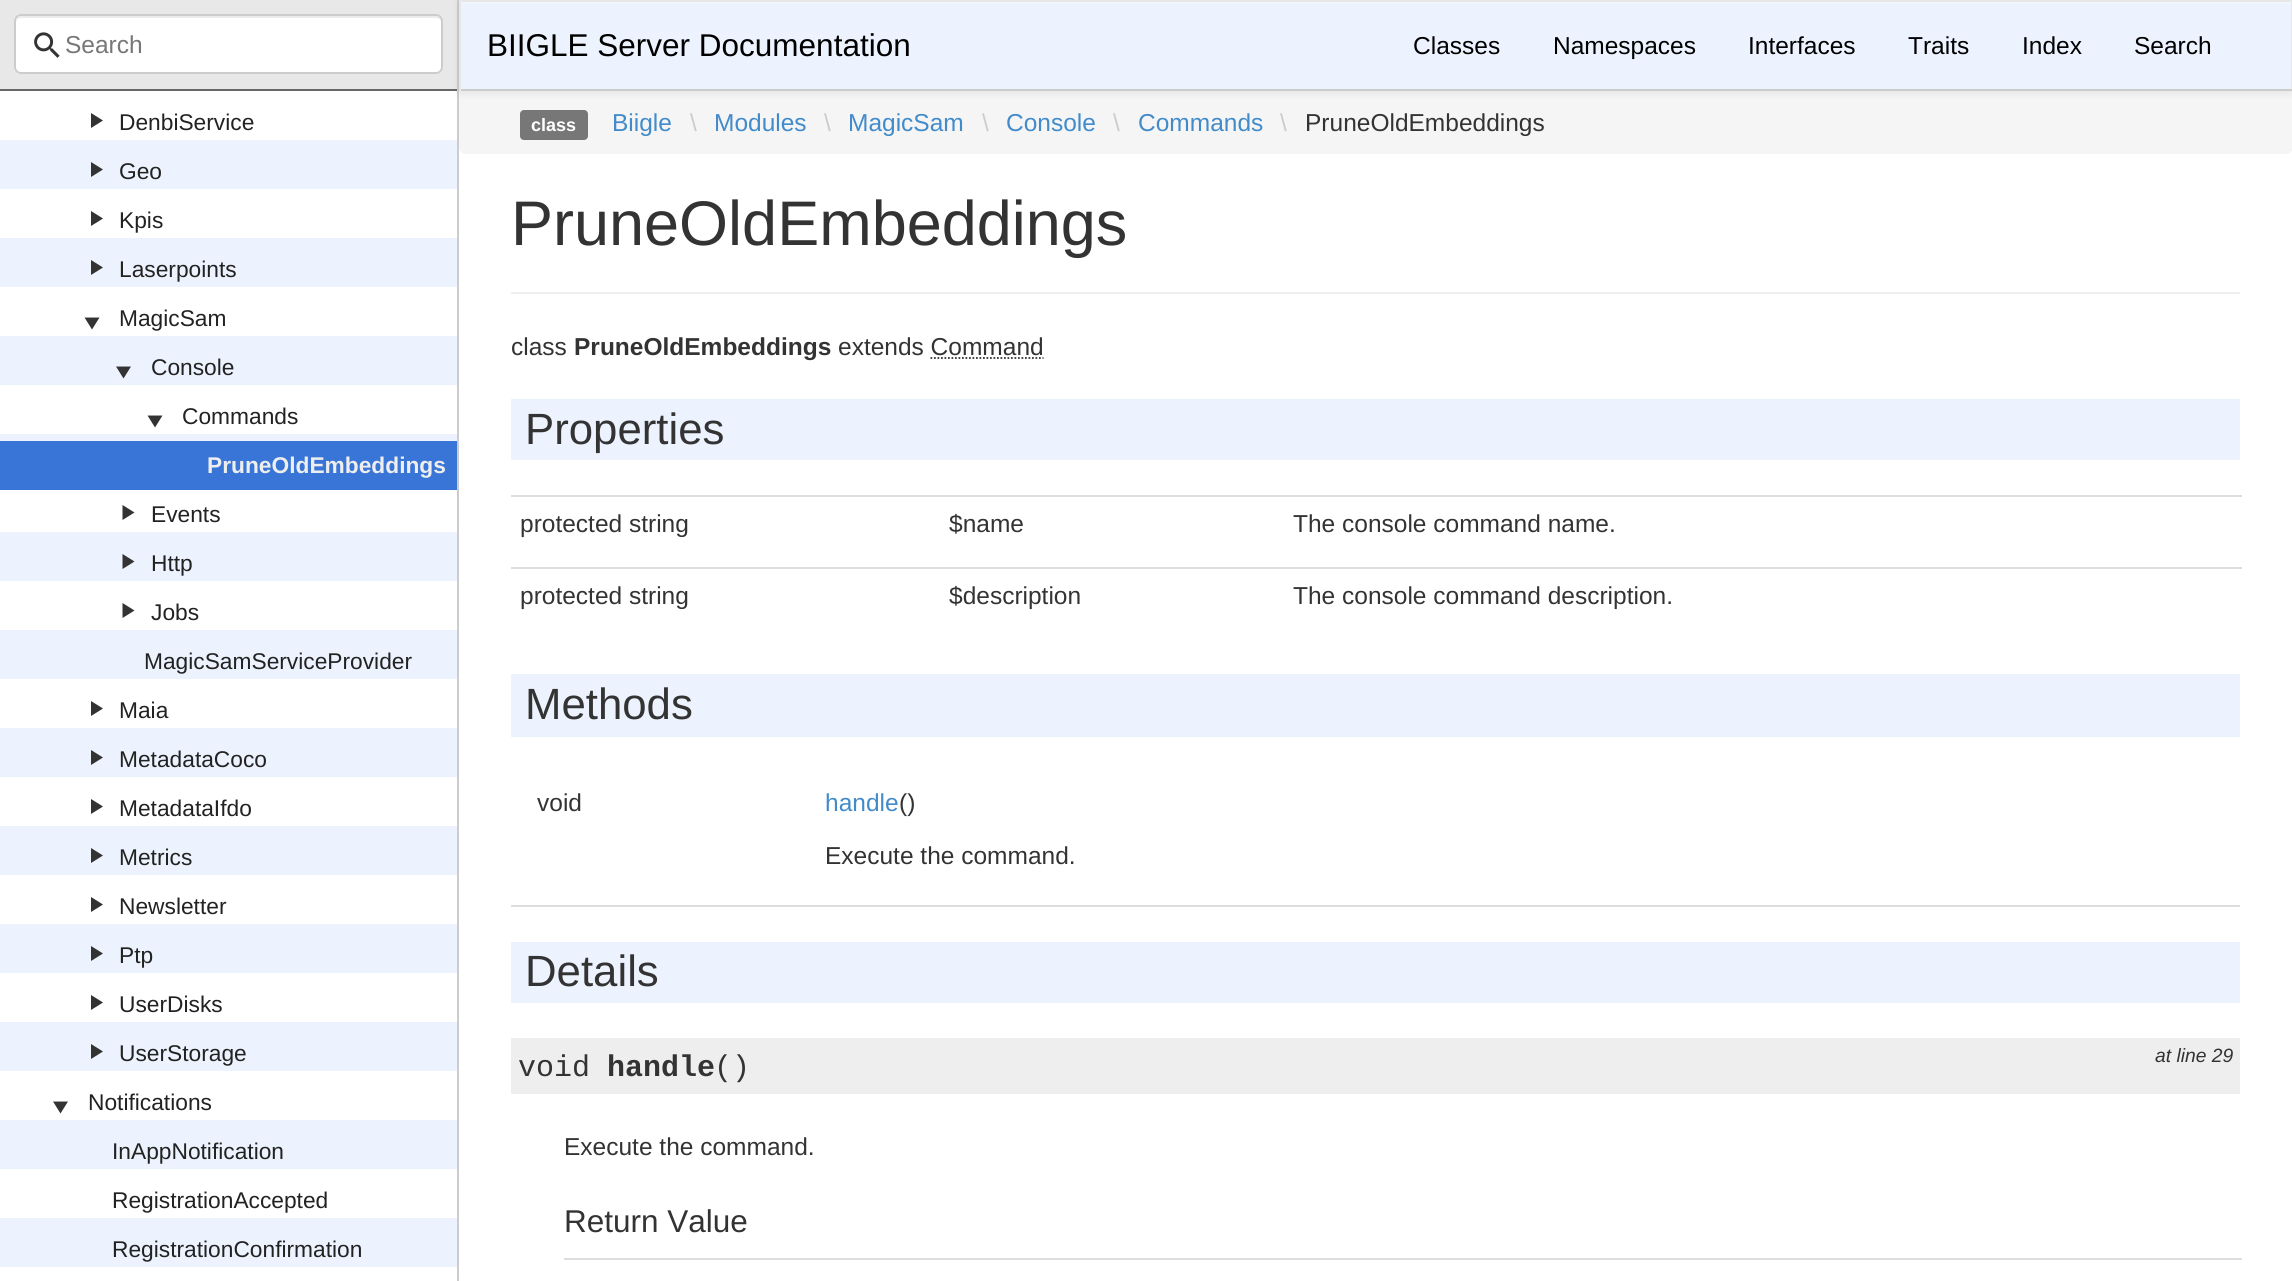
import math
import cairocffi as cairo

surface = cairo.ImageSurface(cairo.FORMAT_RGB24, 2292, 1281)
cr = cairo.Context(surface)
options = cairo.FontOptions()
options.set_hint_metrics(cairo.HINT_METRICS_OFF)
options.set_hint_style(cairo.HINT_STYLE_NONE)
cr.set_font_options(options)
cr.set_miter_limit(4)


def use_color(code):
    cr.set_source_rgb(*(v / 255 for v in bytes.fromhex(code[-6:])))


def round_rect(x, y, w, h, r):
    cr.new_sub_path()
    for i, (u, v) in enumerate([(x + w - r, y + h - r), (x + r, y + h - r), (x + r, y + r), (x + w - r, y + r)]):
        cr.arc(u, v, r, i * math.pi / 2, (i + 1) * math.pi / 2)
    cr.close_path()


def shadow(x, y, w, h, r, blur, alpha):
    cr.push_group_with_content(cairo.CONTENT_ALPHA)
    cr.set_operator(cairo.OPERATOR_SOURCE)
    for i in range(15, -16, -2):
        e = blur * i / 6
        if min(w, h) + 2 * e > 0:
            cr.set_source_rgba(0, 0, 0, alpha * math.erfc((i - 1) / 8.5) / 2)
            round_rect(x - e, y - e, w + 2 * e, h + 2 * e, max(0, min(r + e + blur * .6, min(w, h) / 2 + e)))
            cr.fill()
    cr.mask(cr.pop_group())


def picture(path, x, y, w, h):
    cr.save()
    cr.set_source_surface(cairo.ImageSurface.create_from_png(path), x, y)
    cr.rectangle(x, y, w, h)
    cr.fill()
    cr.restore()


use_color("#ffffff")
cr.paint()
use_color("#cccccc")
cr.rectangle(457, 0, 2, 1281)
cr.fill()
use_color("#e8e8e8")
cr.rectangle(0, 0, 457, 89)
cr.fill()
use_color("#666666")
cr.rectangle(0, 89, 457, 2)
cr.fill()
use_color("#ffffff")
round_rect(14, 14, 429, 60, 7)
cr.fill()
use_color("#ececec")
cr.new_path()
cr.move_to(21, 18)
cr.line_to(436, 18)
cr.curve_to(439, 18, 441, 20, 441, 23)
cr.line_to(441, 21)
cr.curve_to(441, 18, 439, 16, 436, 16)
cr.line_to(21, 16)
cr.curve_to(18, 16, 16, 18, 16, 21)
cr.line_to(16, 23)
cr.curve_to(16, 20, 18, 18, 21, 18)
cr.close_path()
cr.fill()
round_rect(15, 15, 427, 58, 6)
use_color("#cccccc")
cr.stroke()
picture("img1.png", 34, 32, 26, 26)
cr.select_font_face("Liberation Sans")
cr.set_font_size(24.5)
use_color("#777777")
cr.move_to(65, 53)
cr.show_text("Search")
picture("img2.png", 0, 140, 457, 1127)
use_color("#333333")
cr.new_path()
cr.move_to(91, 113)
cr.line_to(91, 128)
cr.line_to(103, 120.5)
cr.close_path()
cr.fill()
cr.set_font_size(22.75)
use_color("#222222")
cr.move_to(119, 130)
cr.show_text("DenbiService")
use_color("#333333")
cr.new_path()
cr.move_to(91, 162)
cr.line_to(91, 177)
cr.line_to(103, 169.5)
cr.close_path()
cr.fill()
use_color("#222222")
cr.move_to(119, 179)
cr.show_text("Geo")
use_color("#333333")
cr.new_path()
cr.move_to(91, 211)
cr.line_to(91, 226)
cr.line_to(103, 218.5)
cr.close_path()
cr.fill()
use_color("#222222")
cr.move_to(119, 228)
cr.show_text("Kpis")
use_color("#333333")
cr.new_path()
cr.move_to(91, 260)
cr.line_to(91, 275)
cr.line_to(103, 267.5)
cr.close_path()
cr.fill()
use_color("#222222")
cr.move_to(119, 277)
cr.show_text("Laserpoints")
cr.move_to(119, 326)
cr.show_text("MagicSam")
use_color("#333333")
cr.new_path()
cr.move_to(99.5, 317.5)
cr.line_to(84.5, 317.5)
cr.line_to(92, 329.5)
cr.close_path()
cr.move_to(131, 366.5)
cr.line_to(116, 366.5)
cr.line_to(123.5, 378.5)
cr.close_path()
cr.fill()
use_color("#222222")
cr.move_to(151, 375)
cr.show_text("Console")
use_color("#333333")
cr.new_path()
cr.move_to(162.5, 415.5)
cr.line_to(147.5, 415.5)
cr.line_to(155, 427.5)
cr.close_path()
cr.fill()
use_color("#222222")
cr.move_to(182, 424)
cr.show_text("Commands")
use_color("#3875d7")
cr.rectangle(0, 441, 457, 49)
cr.fill()
cr.select_font_face("Liberation Sans", cairo.FONT_SLANT_NORMAL, cairo.FONT_WEIGHT_BOLD)
use_color("#eeeeee")
cr.move_to(207, 473)
cr.show_text("PruneOldEmbeddings")
use_color("#333333")
cr.new_path()
cr.move_to(122.5, 505)
cr.line_to(122.5, 520)
cr.line_to(134.5, 512.5)
cr.close_path()
cr.fill()
cr.select_font_face("Liberation Sans")
use_color("#222222")
cr.move_to(151, 522)
cr.show_text("Events")
use_color("#333333")
cr.new_path()
cr.move_to(122.5, 554)
cr.line_to(122.5, 569)
cr.line_to(134.5, 561.5)
cr.close_path()
cr.fill()
use_color("#222222")
cr.move_to(151, 571)
cr.show_text("Http")
use_color("#333333")
cr.new_path()
cr.move_to(122.5, 603)
cr.line_to(122.5, 618)
cr.line_to(134.5, 610.5)
cr.close_path()
cr.fill()
use_color("#222222")
cr.move_to(151, 620)
cr.show_text("Jobs")
cr.move_to(144, 669)
cr.show_text("MagicSamServiceProvider")
use_color("#333333")
cr.new_path()
cr.move_to(91, 701)
cr.line_to(91, 716)
cr.line_to(103, 708.5)
cr.close_path()
cr.fill()
use_color("#222222")
cr.move_to(119, 718)
cr.show_text("Maia")
use_color("#333333")
cr.new_path()
cr.move_to(91, 750)
cr.line_to(91, 765)
cr.line_to(103, 757.5)
cr.close_path()
cr.fill()
use_color("#222222")
cr.move_to(119, 767)
cr.show_text("MetadataCoco")
use_color("#333333")
cr.new_path()
cr.move_to(91, 799)
cr.line_to(91, 814)
cr.line_to(103, 806.5)
cr.close_path()
cr.fill()
use_color("#222222")
cr.move_to(119, 816)
cr.show_text("MetadataIfdo")
use_color("#333333")
cr.new_path()
cr.move_to(91, 848)
cr.line_to(91, 863)
cr.line_to(103, 855.5)
cr.close_path()
cr.fill()
use_color("#222222")
cr.move_to(119, 865)
cr.show_text("Metrics")
use_color("#333333")
cr.new_path()
cr.move_to(91, 897)
cr.line_to(91, 912)
cr.line_to(103, 904.5)
cr.close_path()
cr.fill()
use_color("#222222")
cr.move_to(119, 914)
cr.show_text("Newsletter")
use_color("#333333")
cr.new_path()
cr.move_to(91, 946)
cr.line_to(91, 961)
cr.line_to(103, 953.5)
cr.close_path()
cr.fill()
use_color("#222222")
cr.move_to(119, 963)
cr.show_text("Ptp")
use_color("#333333")
cr.new_path()
cr.move_to(91, 995)
cr.line_to(91, 1010)
cr.line_to(103, 1002.5)
cr.close_path()
cr.fill()
use_color("#222222")
cr.move_to(119, 1012)
cr.show_text("UserDisks")
use_color("#333333")
cr.new_path()
cr.move_to(91, 1044)
cr.line_to(91, 1059)
cr.line_to(103, 1051.5)
cr.close_path()
cr.fill()
use_color("#222222")
cr.move_to(119, 1061)
cr.show_text("UserStorage")
use_color("#333333")
cr.new_path()
cr.move_to(68, 1101.5)
cr.line_to(53, 1101.5)
cr.line_to(60.5, 1113.5)
cr.close_path()
cr.fill()
use_color("#222222")
cr.move_to(88, 1110)
cr.show_text("Notifications")
cr.move_to(112, 1159)
cr.show_text("InAppNotification")
cr.move_to(112, 1208)
cr.show_text("RegistrationAccepted")
cr.move_to(112, 1257)
cr.show_text("RegistrationConfirmation")
use_color("#f5f5f5")
cr.new_path()
cr.move_to(459, 91)
cr.line_to(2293, 91)
cr.line_to(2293, 147)
cr.curve_to(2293, 151, 2290, 154, 2286, 154)
cr.line_to(466, 154)
cr.curve_to(462, 154, 459, 151, 459, 147)
cr.close_path()
cr.fill()
use_color("#000000")
shadow(459, 2, 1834, 91, 0, 4.5, 0.07)
use_color("#edf3fe")
cr.rectangle(461, 4, 1830, 85)
cr.fill()
use_color("#f0f5fe")
cr.rectangle(460, 2, 1831, 2)
cr.fill()
use_color("#e7e7e7")
cr.rectangle(459, 0, 1833, 2)
cr.fill()
cr.rectangle(2291, 0, 1, 91)
cr.fill()
use_color("#cccccc")
cr.rectangle(459, 89, 1833, 2)
cr.fill()
use_color("#e7e7e7")
cr.rectangle(459, 0, 2, 91)
cr.fill()
cr.set_font_size(31.5)
use_color("#000000")
cr.move_to(487, 56)
cr.show_text("BIIGLE Server Documentation")
cr.set_font_size(24.5)
cr.move_to(1413, 54)
cr.show_text("Classes")
cr.move_to(1553, 54)
cr.show_text("Namespaces")
cr.move_to(1748, 54)
cr.show_text("Interfaces")
cr.move_to(1908, 54)
cr.show_text("Traits")
cr.move_to(2022, 54)
cr.show_text("Index")
cr.move_to(2134, 54)
cr.show_text("Search")
use_color("#777777")
round_rect(520, 110, 68, 30, 4)
cr.fill()
cr.select_font_face("Liberation Sans", cairo.FONT_SLANT_NORMAL, cairo.FONT_WEIGHT_BOLD)
cr.set_font_size(18)
use_color("#ffffff")
cr.move_to(531, 131)
cr.show_text("class")
cr.select_font_face("Liberation Sans")
cr.set_font_size(24.5)
use_color("#428bca")
cr.move_to(612, 131)
cr.show_text("Biigle")
use_color("#cccccc")
cr.move_to(690, 131)
cr.show_text("\\")
use_color("#428bca")
cr.move_to(714, 131)
cr.show_text("Modules")
use_color("#cccccc")
cr.move_to(824, 131)
cr.show_text("\\")
use_color("#428bca")
cr.move_to(848, 131)
cr.show_text("MagicSam")
use_color("#cccccc")
cr.move_to(982, 131)
cr.show_text("\\")
use_color("#428bca")
cr.move_to(1006, 131)
cr.show_text("Console")
use_color("#cccccc")
cr.move_to(1113, 131)
cr.show_text("\\")
use_color("#428bca")
cr.move_to(1138, 131)
cr.show_text("Commands")
use_color("#cccccc")
cr.move_to(1280, 131)
cr.show_text("\\")
use_color("#333333")
cr.move_to(1305, 131)
cr.show_text("PruneOldEmbeddings")
use_color("#eeeeee")
cr.rectangle(511, 292, 1729, 2)
cr.fill()
cr.set_font_size(63)
use_color("#333333")
cr.move_to(511, 245)
cr.show_text("PruneOldEmbeddings")
cr.set_font_size(24.5)
cr.move_to(511, 355)
cr.show_text("class")
cr.select_font_face("Liberation Sans", cairo.FONT_SLANT_NORMAL, cairo.FONT_WEIGHT_BOLD)
cr.move_to(574, 355)
cr.show_text("PruneOldEmbeddings")
cr.select_font_face("Liberation Sans")
cr.move_to(838, 355)
cr.show_text("extends Command")
cr.new_path()
cr.move_to(930.5, 358)
cr.line_to(1043.5, 358)
cr.set_line_width(1.8)
cr.set_dash([1.75, 1.75])
cr.stroke()
use_color("#edf3fe")
cr.rectangle(511, 399, 1729, 61)
cr.fill()
cr.set_font_size(43.75)
use_color("#333333")
cr.move_to(525, 444)
cr.show_text("Properties")
use_color("#dddddd")
cr.rectangle(511, 495, 1731, 2)
cr.fill()
cr.set_font_size(24.5)
use_color("#333333")
cr.move_to(520, 532)
cr.show_text("protected string")
cr.move_to(949, 532)
cr.show_text("$name")
cr.move_to(1293, 532)
cr.show_text("The console command name.")
use_color("#dddddd")
cr.rectangle(511, 567, 1731, 2)
cr.fill()
use_color("#333333")
cr.move_to(520, 604)
cr.show_text("protected string")
cr.move_to(949, 604)
cr.show_text("$description")
cr.move_to(1293, 604)
cr.show_text("The console command description.")
use_color("#edf3fe")
cr.rectangle(511, 674, 1729, 63)
cr.fill()
cr.set_font_size(43.75)
use_color("#333333")
cr.move_to(525, 719)
cr.show_text("Methods")
use_color("#dddddd")
cr.rectangle(511, 905, 1729, 2)
cr.fill()
cr.set_font_size(24.5)
use_color("#333333")
cr.move_to(537, 811)
cr.show_text("void")
use_color("#428bca")
cr.move_to(825, 811)
cr.show_text("handle")
use_color("#333333")
cr.move_to(899, 811)
cr.show_text("()")
cr.move_to(825, 864)
cr.show_text("Execute the command.")
use_color("#edf3fe")
cr.rectangle(511, 942, 1729, 61)
cr.fill()
cr.set_font_size(43.75)
use_color("#333333")
cr.move_to(525, 986)
cr.show_text("Details")
use_color("#eeeeee")
cr.rectangle(511, 1038, 1729, 56)
cr.fill()
cr.select_font_face("Liberation Mono")
cr.set_font_size(30)
use_color("#333333")
cr.move_to(518, 1076)
cr.show_text("void")
cr.select_font_face("Liberation Mono", cairo.FONT_SLANT_NORMAL, cairo.FONT_WEIGHT_BOLD)
cr.move_to(607, 1076)
cr.show_text("handle")
cr.select_font_face("Liberation Mono")
cr.move_to(714, 1076)
cr.show_text("()")
cr.select_font_face("Liberation Sans", cairo.FONT_SLANT_ITALIC)
cr.set_font_size(19.25)
cr.move_to(2155, 1062)
cr.show_text("at line 29")
cr.select_font_face("Liberation Sans")
cr.set_font_size(24.5)
cr.move_to(564, 1155)
cr.show_text("Execute the command.")
cr.set_font_size(31.5)
cr.move_to(564, 1232)
cr.show_text("Return Value")
use_color("#dddddd")
cr.rectangle(564, 1258, 1678, 2)
cr.fill()
surface.write_to_png("result.png")
